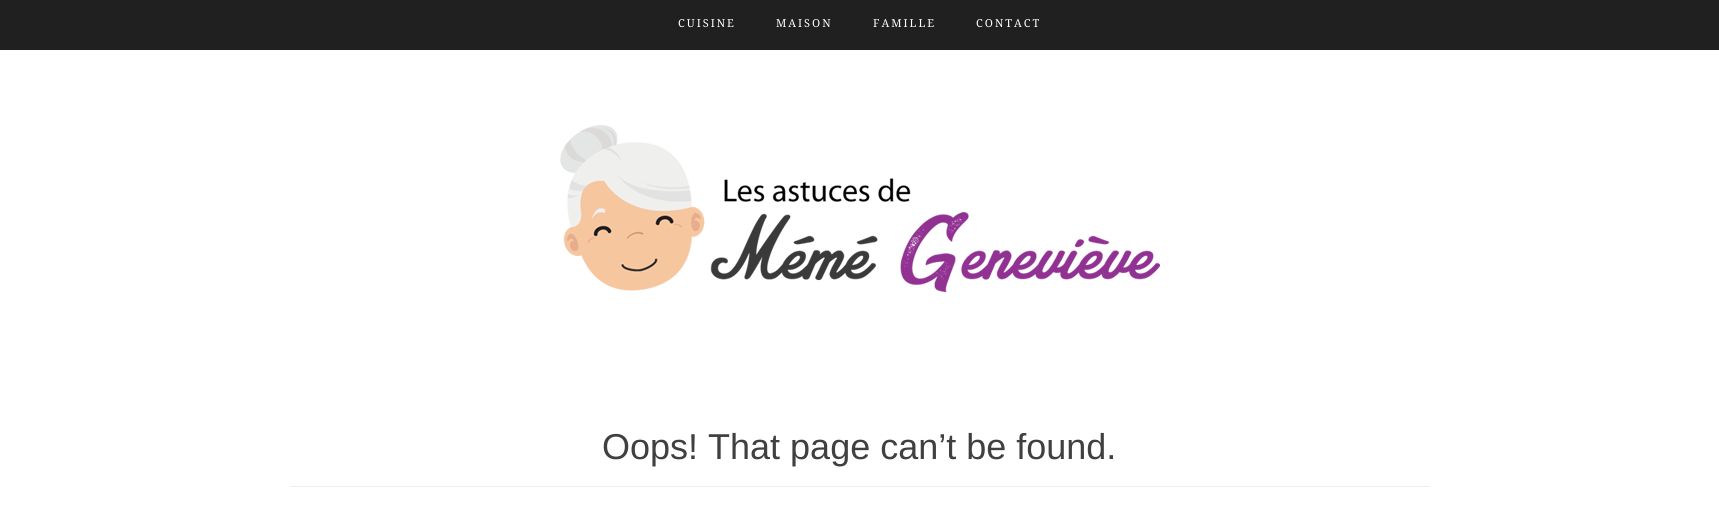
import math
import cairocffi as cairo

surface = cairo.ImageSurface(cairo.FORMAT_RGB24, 1719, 517)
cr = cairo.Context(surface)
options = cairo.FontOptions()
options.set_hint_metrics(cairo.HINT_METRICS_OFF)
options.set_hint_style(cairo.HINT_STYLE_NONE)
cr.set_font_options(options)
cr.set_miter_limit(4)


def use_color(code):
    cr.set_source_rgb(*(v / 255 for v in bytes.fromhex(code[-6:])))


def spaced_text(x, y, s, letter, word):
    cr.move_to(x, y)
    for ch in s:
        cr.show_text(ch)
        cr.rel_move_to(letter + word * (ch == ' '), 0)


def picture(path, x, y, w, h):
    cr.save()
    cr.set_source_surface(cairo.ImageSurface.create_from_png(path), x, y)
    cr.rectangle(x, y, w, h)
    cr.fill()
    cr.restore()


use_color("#ffffff")
cr.paint()
use_color("#202020")
cr.rectangle(0, 0, 1719, 50)
cr.fill()
cr.select_font_face("Droid Serif")
cr.set_font_size(11)
use_color("#ffffff")
spaced_text(678, 27, "CUISINE", 2, 0)
spaced_text(776, 27, "MAISON", 2, 0)
spaced_text(873, 27, "FAMILLE", 2, 0)
spaced_text(976, 27, "CONTACT", 2, 0)
picture("img1.png", 560, 125, 600, 167)
use_color("#eeeeee")
cr.rectangle(290, 486, 1140, 1)
cr.fill()
cr.select_font_face("Liberation Sans")
cr.set_font_size(36)
use_color("#404040")
cr.move_to(602, 459)
cr.show_text("Oops! That page can’t be found.")
surface.write_to_png("result.png")
